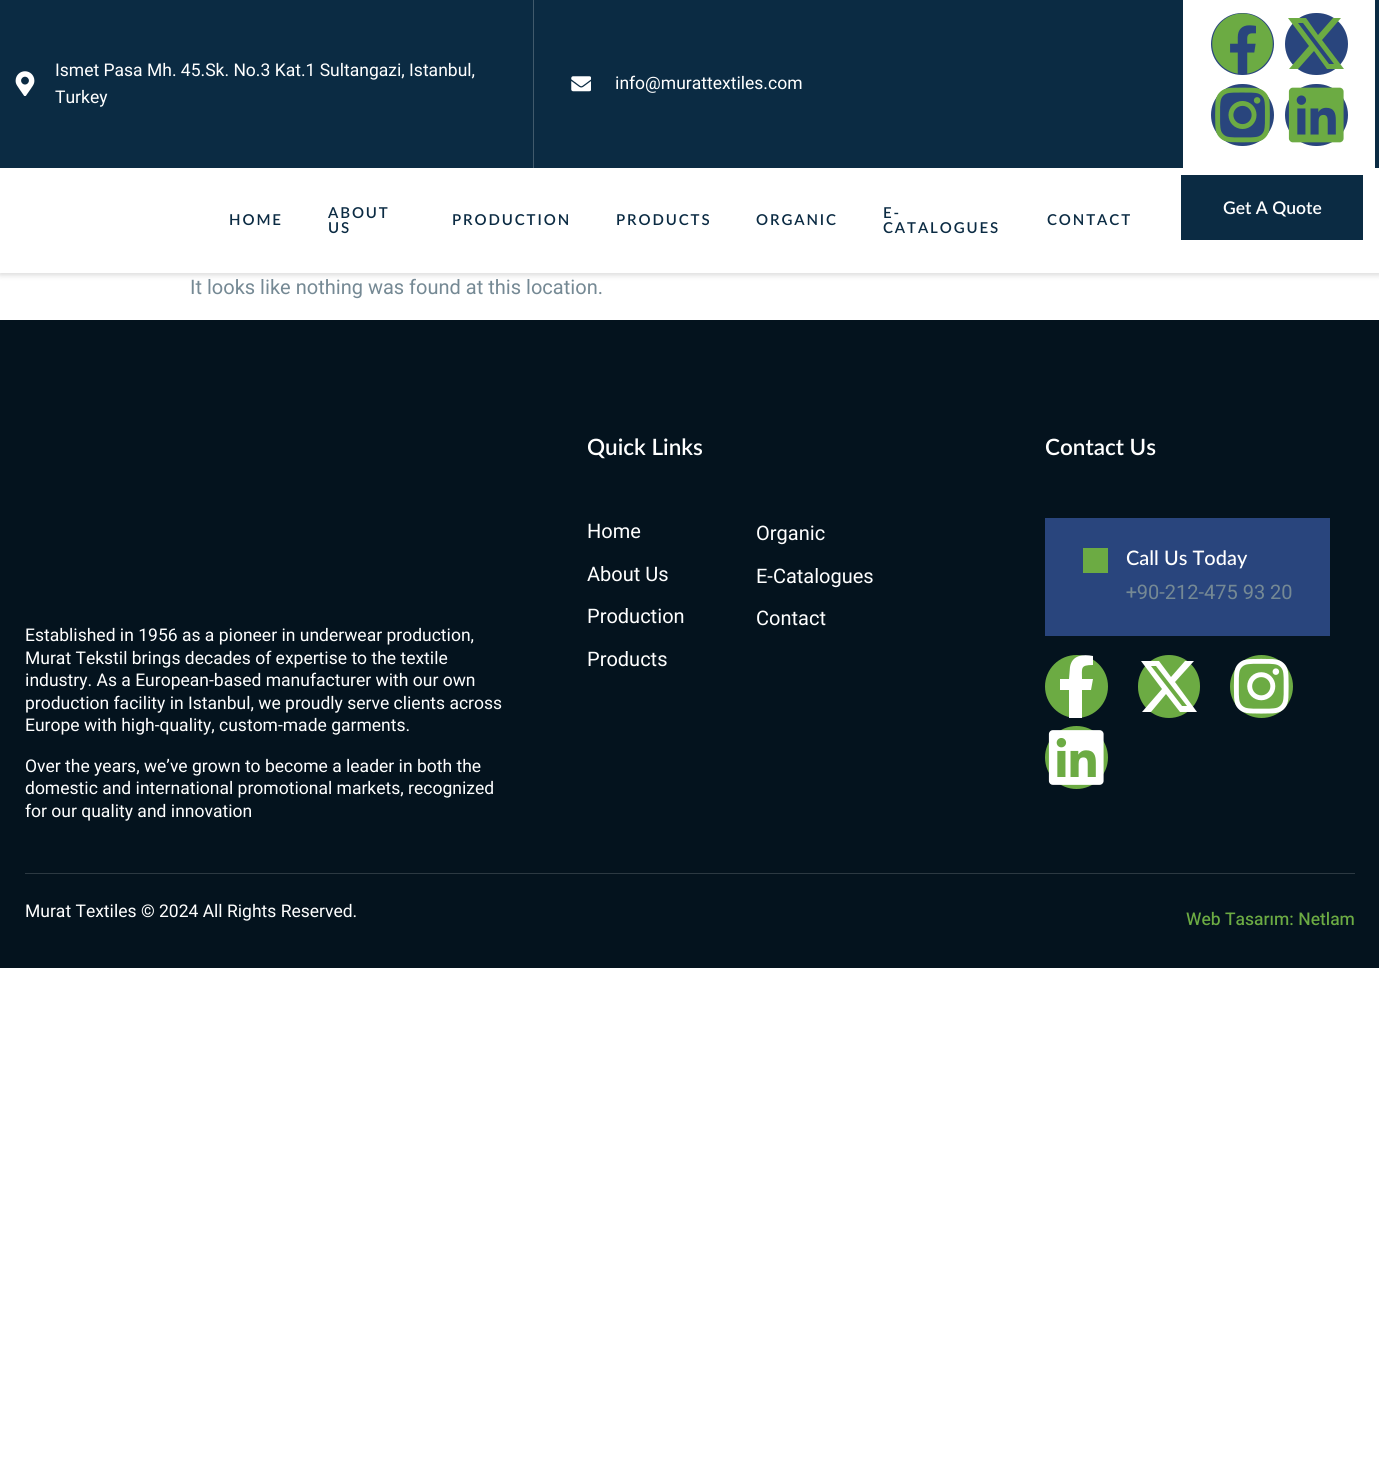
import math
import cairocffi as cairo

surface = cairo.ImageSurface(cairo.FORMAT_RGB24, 1379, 1458)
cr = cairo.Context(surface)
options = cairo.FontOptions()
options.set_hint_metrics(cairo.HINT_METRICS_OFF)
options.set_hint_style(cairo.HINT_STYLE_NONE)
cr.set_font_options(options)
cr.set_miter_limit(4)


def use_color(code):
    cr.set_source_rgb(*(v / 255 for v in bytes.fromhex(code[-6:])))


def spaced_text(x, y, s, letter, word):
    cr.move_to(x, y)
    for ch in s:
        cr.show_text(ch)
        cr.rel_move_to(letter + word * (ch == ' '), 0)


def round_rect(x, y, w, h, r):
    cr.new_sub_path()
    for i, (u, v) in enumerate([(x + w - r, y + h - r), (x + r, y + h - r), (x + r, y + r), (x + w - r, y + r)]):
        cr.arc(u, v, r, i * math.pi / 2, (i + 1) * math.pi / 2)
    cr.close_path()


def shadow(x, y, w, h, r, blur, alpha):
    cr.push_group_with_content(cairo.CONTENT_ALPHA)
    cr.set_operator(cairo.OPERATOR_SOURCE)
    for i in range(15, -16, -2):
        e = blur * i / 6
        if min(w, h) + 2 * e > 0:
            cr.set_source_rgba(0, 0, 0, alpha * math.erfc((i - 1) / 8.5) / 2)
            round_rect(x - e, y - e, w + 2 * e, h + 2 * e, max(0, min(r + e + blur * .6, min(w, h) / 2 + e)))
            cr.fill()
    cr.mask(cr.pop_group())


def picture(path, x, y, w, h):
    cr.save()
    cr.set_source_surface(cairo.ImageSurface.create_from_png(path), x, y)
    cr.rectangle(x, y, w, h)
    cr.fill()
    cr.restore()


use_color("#ffffff")
cr.paint()
cr.save()
cr.set_fill_rule(cairo.FILL_RULE_EVEN_ODD)
cr.new_path()
cr.move_to(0, 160)
cr.line_to(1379, 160)
cr.line_to(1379, 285)
cr.line_to(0, 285)
cr.close_path()
cr.move_to(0, 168)
cr.line_to(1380, 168)
cr.line_to(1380, 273)
cr.line_to(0, 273)
cr.close_path()
cr.clip()
use_color("#000000")
shadow(0, 170, 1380, 105, 0, 3, 0.15)
cr.restore()
use_color("#0b2b43")
cr.rectangle(0, 0, 1379, 168)
cr.fill()
picture("img1.png", 15, 71, 20, 25)
cr.select_font_face("Heebo")
cr.set_font_size(17.5)
use_color("#ffffff")
cr.move_to(55, 76)
cr.show_text("Ismet Pasa Mh. 45.Sk. No.3 Kat.1 Sultangazi, Istanbul,")
cr.move_to(55, 103)
cr.show_text("Turkey")
use_color("#415a6c")
cr.rectangle(533, 0, 1, 168)
cr.fill()
picture("img2.png", 571, 76, 20, 16)
use_color("#ffffff")
cr.move_to(615, 89)
cr.show_text("info@murattextiles.com")
cr.rectangle(1183, 0, 192, 168)
cr.fill()
use_color("#29457d")
round_rect(1211, 13, 63, 62, 31)
cr.fill()
picture("img3.png", 1212, 13, 61, 61)
round_rect(1285, 13, 63, 62, 31)
cr.fill()
use_color("#6cab43")
cr.new_path()
cr.move_to(1333, 18)
cr.line_to(1341, 18)
cr.line_to(1322, 40)
cr.line_to(1344, 69)
cr.line_to(1327, 69)
cr.line_to(1314, 51)
cr.line_to(1298, 69)
cr.line_to(1289, 69)
cr.line_to(1309, 46)
cr.line_to(1288, 18)
cr.line_to(1306, 18)
cr.line_to(1318, 35)
cr.close_path()
cr.move_to(1329, 64)
cr.line_to(1334, 64)
cr.line_to(1303, 23)
cr.line_to(1298, 23)
cr.close_path()
cr.fill()
use_color("#29457d")
round_rect(1211, 84, 63, 62, 31)
cr.fill()
picture("img4.png", 1215, 87, 55, 56)
round_rect(1285, 84, 63, 62, 31)
cr.fill()
picture("img5.png", 1288, 87, 56, 56)
cr.select_font_face("Lato SemiBold")
cr.set_font_size(15)
use_color("#0b2b43")
spaced_text(229, 225, "HOME", 1.9, 0)
spaced_text(328, 218, "ABOUT", 1.9, 0)
spaced_text(328, 233, "US", 1.9, 0)
spaced_text(452, 225, "PRODUCTION", 1.9, 0)
spaced_text(616, 225, "PRODUCTS", 1.9, 0)
spaced_text(756, 225, "ORGANIC", 1.9, 0)
spaced_text(883, 218, "E-", 1.9, 0)
spaced_text(883, 233, "CATALOGUES", 1.9, 0)
spaced_text(1047, 225, "CONTACT", 1.9, 0)
cr.rectangle(1181, 175, 182, 65)
cr.fill()
cr.set_font_size(17.5)
use_color("#ffffff")
cr.move_to(1223, 214)
cr.show_text("Get A Quote")
cr.select_font_face("Heebo")
cr.set_font_size(20)
use_color("#758994")
cr.move_to(190, 294)
cr.show_text("It looks like nothing was found at this location.")
use_color("#04131e")
cr.rectangle(0, 320, 1379, 648)
cr.fill()
cr.select_font_face("Lato SemiBold")
cr.set_font_size(22.5)
use_color("#ffffff")
cr.move_to(587, 455)
cr.show_text("Quick Links")
cr.select_font_face("Heebo")
cr.set_font_size(20)
cr.move_to(587, 538)
cr.show_text("Home")
cr.move_to(587, 581)
cr.show_text("About Us")
cr.move_to(587, 623)
cr.show_text("Production")
cr.move_to(587, 666)
cr.show_text("Products")
cr.move_to(756, 540)
cr.show_text("Organic")
cr.move_to(756, 583)
cr.show_text("E-Catalogues")
cr.move_to(756, 625)
cr.show_text("Contact")
cr.select_font_face("Lato SemiBold")
cr.set_font_size(22.5)
cr.move_to(1045, 455)
cr.show_text("Contact Us")
use_color("#29457d")
cr.rectangle(1045, 518, 285, 118)
cr.fill()
use_color("#6cab43")
cr.rectangle(1083, 548, 25, 25)
cr.fill()
cr.select_font_face("Lato Medium")
cr.set_font_size(20)
use_color("#ffffff")
cr.move_to(1126, 565)
cr.show_text("Call Us Today")
cr.select_font_face("Heebo")
use_color("#758994")
cr.move_to(1126, 599)
cr.show_text("+90-212-475 93 20")
use_color("#6cab43")
cr.new_path()
cr.arc(1076.5, 686.5, 31.5, 0, 2 * math.pi)
cr.fill()
use_color("#ffffff")
cr.new_path()
cr.move_to(1091, 690)
cr.line_to(1093, 679)
cr.line_to(1082, 679)
cr.curve_to(1082, 668, 1080, 665, 1093, 665)
cr.line_to(1093, 656)
cr.curve_to(1083, 654, 1072, 655, 1070, 667)
cr.line_to(1069, 679)
cr.line_to(1060, 679)
cr.line_to(1060, 690)
cr.line_to(1069, 690)
cr.line_to(1069, 718)
cr.line_to(1082, 718)
cr.line_to(1082, 690)
cr.close_path()
cr.fill()
use_color("#6cab43")
round_rect(1138, 655, 62, 63, 31)
cr.fill()
use_color("#ffffff")
cr.new_path()
cr.move_to(1185, 661)
cr.line_to(1194, 661)
cr.line_to(1175, 682)
cr.line_to(1197, 712)
cr.line_to(1180, 712)
cr.line_to(1166, 694)
cr.line_to(1151, 712)
cr.line_to(1142, 712)
cr.line_to(1162, 689)
cr.line_to(1141, 661)
cr.line_to(1159, 661)
cr.line_to(1171, 677)
cr.close_path()
cr.move_to(1182, 706)
cr.line_to(1187, 706)
cr.line_to(1156, 666)
cr.line_to(1151, 666)
cr.close_path()
cr.fill()
use_color("#6cab43")
cr.arc(1261.5, 686.5, 31.5, 0, 2 * math.pi)
cr.fill()
picture("img6.png", 1233, 658, 56, 56)
cr.arc(1076.5, 757.5, 31.5, 0, 2 * math.pi)
cr.fill()
picture("img7.png", 1048, 730, 56, 55)
cr.set_font_size(17.5)
use_color("#ffffff")
cr.move_to(25, 641)
cr.show_text("Established in 1956 as a pioneer in underwear production,")
cr.move_to(25, 664)
cr.show_text("Murat Tekstil brings decades of expertise to the textile")
cr.move_to(25, 686)
cr.show_text("industry. As a European-based manufacturer with our own")
cr.move_to(25, 709)
cr.show_text("production facility in Istanbul, we proudly serve clients across")
cr.move_to(25, 731)
cr.show_text("Europe with high-quality, custom-made garments.")
cr.move_to(25, 772)
cr.show_text("Over the years, we’ve grown to become a leader in both the")
cr.move_to(25, 794)
cr.show_text("domestic and international promotional markets, recognized")
cr.move_to(25, 817)
cr.show_text("for our quality and innovation")
use_color("#2c3942")
cr.rectangle(25, 873, 1330, 1)
cr.fill()
use_color("#ffffff")
cr.move_to(25, 917)
cr.show_text("Murat Textiles © 2024 All Rights Reserved.")
cr.select_font_face("Heebo Medium")
use_color("#6cab43")
cr.move_to(1186, 925)
cr.show_text("Web Tasarım: Netlam")
surface.write_to_png("result.png")
